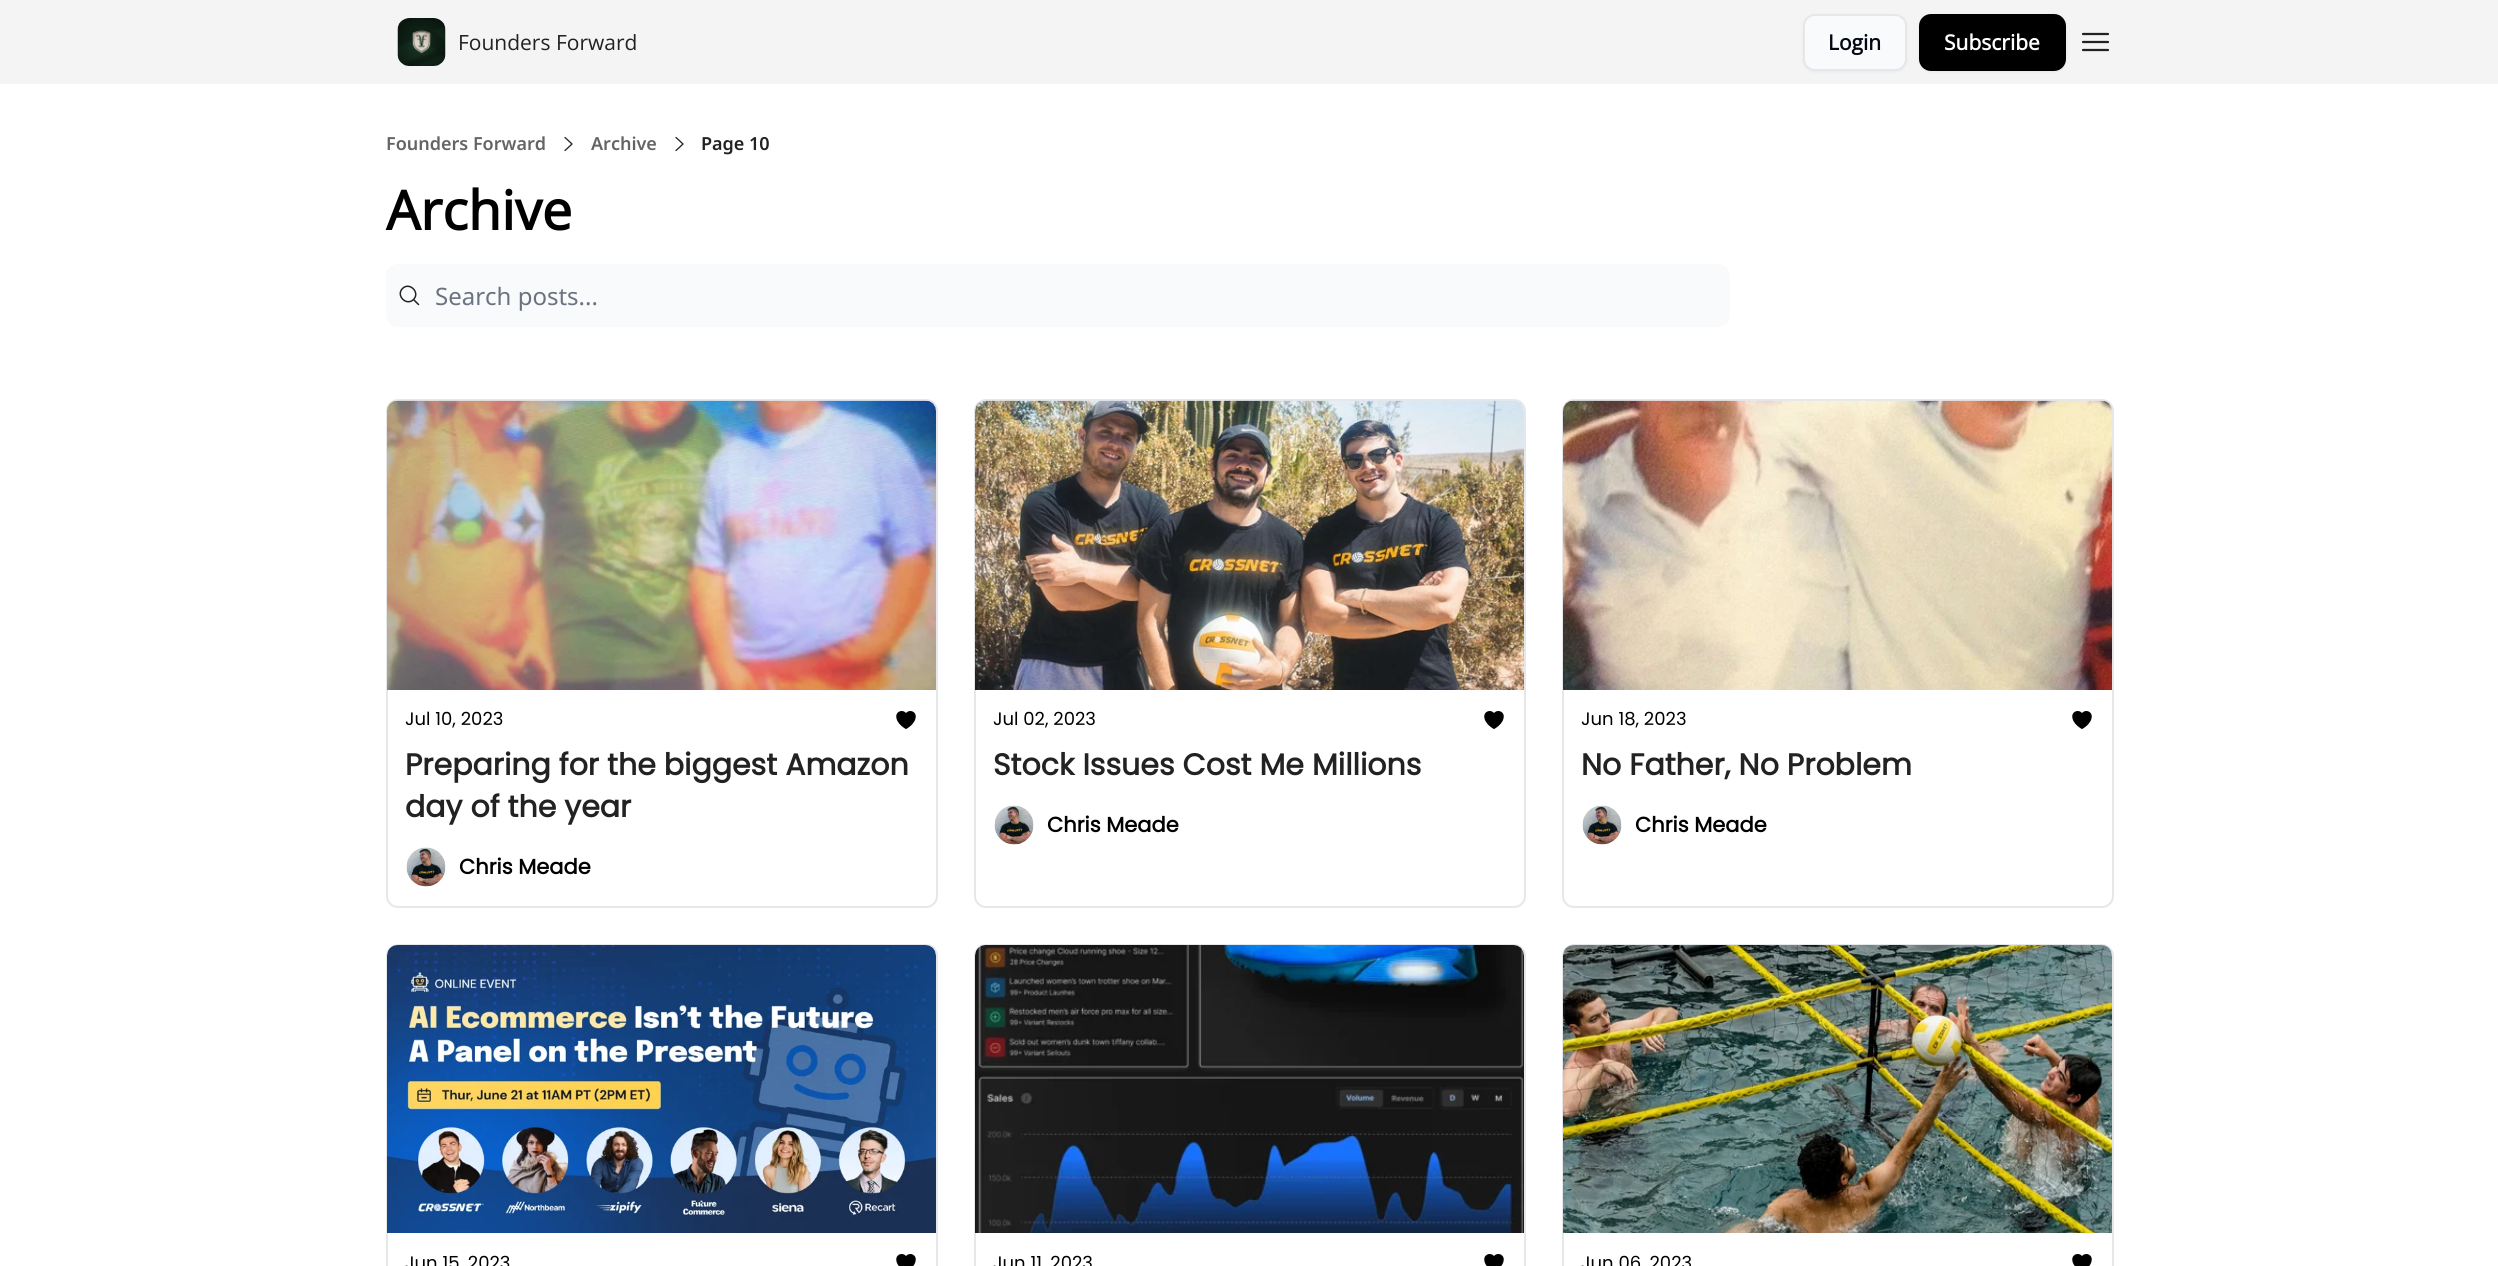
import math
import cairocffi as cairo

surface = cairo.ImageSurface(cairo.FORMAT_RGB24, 2498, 1266)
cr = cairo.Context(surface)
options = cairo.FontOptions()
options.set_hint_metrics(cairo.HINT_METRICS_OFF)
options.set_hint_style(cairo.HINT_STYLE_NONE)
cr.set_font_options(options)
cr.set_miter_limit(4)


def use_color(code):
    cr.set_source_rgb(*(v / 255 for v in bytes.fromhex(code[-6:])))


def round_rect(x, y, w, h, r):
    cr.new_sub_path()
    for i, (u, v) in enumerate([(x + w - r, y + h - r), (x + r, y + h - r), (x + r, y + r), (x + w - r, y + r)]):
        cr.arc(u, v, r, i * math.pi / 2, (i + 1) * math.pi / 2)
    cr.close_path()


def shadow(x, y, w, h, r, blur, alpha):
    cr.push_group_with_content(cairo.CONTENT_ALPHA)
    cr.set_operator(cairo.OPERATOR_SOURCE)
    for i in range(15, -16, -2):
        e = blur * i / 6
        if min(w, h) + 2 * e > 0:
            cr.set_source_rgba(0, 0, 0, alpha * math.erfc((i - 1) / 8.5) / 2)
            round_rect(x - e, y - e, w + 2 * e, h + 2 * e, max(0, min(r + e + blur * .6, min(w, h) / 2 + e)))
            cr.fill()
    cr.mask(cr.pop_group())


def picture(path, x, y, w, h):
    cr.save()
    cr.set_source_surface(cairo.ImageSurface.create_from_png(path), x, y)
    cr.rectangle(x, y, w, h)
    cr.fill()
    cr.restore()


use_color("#ffffff")
cr.paint()
use_color("#f4f4f4")
cr.rectangle(0, 0, 2498, 84)
cr.fill()
picture("img1.png", 397, 18, 49, 48)
cr.select_font_face("Open Sans")
cr.set_font_size(21)
use_color("#222222")
cr.move_to(458, 50)
cr.show_text("Founders Forward")
use_color("#000000")
shadow(1803, 15, 104, 57, 12, 1.5, 0.05)
use_color("#f9fafb")
round_rect(1804, 15, 102, 55, 11)
cr.fill_preserve()
use_color("#e5e7eb")
cr.stroke()
cr.select_font_face("Open Sans", cairo.FONT_SLANT_NORMAL, cairo.FONT_WEIGHT_BOLD)
use_color("#030712")
cr.move_to(1828, 50)
cr.show_text("Login")
use_color("#000000")
shadow(1919, 15, 147, 57, 12, 1.5, 0.05)
use_color("#000000")
round_rect(1920, 15, 145, 55, 11)
cr.fill_preserve()
cr.stroke()
use_color("#ffffff")
cr.move_to(1944, 50)
cr.show_text("Subscribe")
cr.new_path()
cr.move_to(2083, 34)
cr.line_to(2108, 34)
cr.move_to(2083, 42)
cr.line_to(2108, 42)
cr.move_to(2083, 50)
cr.line_to(2108, 50)
use_color("#222222")
cr.set_line_width(2.2)
cr.set_line_cap(cairo.LINE_CAP_ROUND)
cr.set_line_join(cairo.LINE_JOIN_ROUND)
cr.stroke()
cr.select_font_face("Noto Sans SemiBold")
cr.set_font_size(18)
use_color("#646464")
cr.move_to(386, 150)
cr.show_text("Founders Forward")
cr.new_path()
cr.move_to(565, 137.5)
cr.line_to(572, 144)
cr.line_to(565, 150.5)
use_color("#222222")
cr.set_line_width(1.3)
cr.stroke()
use_color("#646464")
cr.move_to(591, 150)
cr.show_text("Archive")
cr.new_path()
cr.move_to(676, 137.5)
cr.line_to(683, 144)
cr.line_to(676, 150.5)
use_color("#222222")
cr.stroke()
cr.move_to(701, 150)
cr.show_text("Page 10")
cr.select_font_face("Open Sans", cairo.FONT_SLANT_NORMAL, cairo.FONT_WEIGHT_BOLD)
cr.set_font_size(54)
use_color("#000000")
cr.move_to(386, 230)
cr.show_text("Archive")
use_color("#f9fafb")
round_rect(386, 264, 1344, 63, 12)
cr.fill()
cr.new_path()
cr.move_to(418.5, 304.5)
cr.line_to(413.5, 299.5)
cr.move_to(413.5, 299.5)
cr.curve_to(420.5, 292.5, 409.5, 281.5, 402.5, 288.5)
cr.curve_to(395.5, 295.5, 406.5, 306.5, 413.5, 299.5)
cr.close_path()
use_color("#222222")
cr.set_line_width(1.5)
cr.stroke()
cr.select_font_face("Noto Sans")
cr.set_font_size(24)
use_color("#6b7280")
cr.move_to(435, 305)
cr.show_text("Search posts...")
round_rect(387, 400, 550, 507, 11)
use_color("#e5e7eb")
cr.set_line_width(2)
cr.set_line_cap(cairo.LINE_CAP_BUTT)
cr.set_line_join(cairo.LINE_JOIN_MITER)
cr.stroke()
picture("img2.png", 387, 400, 549, 290)
cr.select_font_face("Poppins")
cr.set_font_size(18)
use_color("#000000")
cr.move_to(405, 725)
cr.show_text("Jul 10, 2023")
picture("img3.png", 896, 711, 20, 18)
cr.select_font_face("Poppins", cairo.FONT_SLANT_NORMAL, cairo.FONT_WEIGHT_BOLD)
cr.set_font_size(30)
use_color("#222222")
cr.move_to(405, 775)
cr.show_text("Preparing for the biggest Amazon")
cr.move_to(405, 817)
cr.show_text("day of the year")
picture("img4.png", 406, 847, 40, 40)
cr.set_font_size(21)
use_color("#000000")
cr.move_to(459, 874)
cr.show_text("Chris Meade")
round_rect(975, 400, 550, 507, 11)
use_color("#e5e7eb")
cr.stroke()
picture("img5.png", 975, 400, 549, 290)
cr.select_font_face("Poppins")
cr.set_font_size(18)
use_color("#000000")
cr.move_to(993, 725)
cr.show_text("Jul 02, 2023")
picture("img3.png", 1484, 711, 20, 18)
cr.select_font_face("Poppins", cairo.FONT_SLANT_NORMAL, cairo.FONT_WEIGHT_BOLD)
cr.set_font_size(30)
use_color("#222222")
cr.move_to(993, 775)
cr.show_text("Stock Issues Cost Me Millions")
picture("img6.png", 994, 805, 40, 40)
cr.set_font_size(21)
use_color("#000000")
cr.move_to(1047, 832)
cr.show_text("Chris Meade")
round_rect(1563, 400, 550, 507, 11)
use_color("#e5e7eb")
cr.stroke()
picture("img7.png", 1563, 400, 549, 290)
cr.select_font_face("Poppins")
cr.set_font_size(18)
use_color("#000000")
cr.move_to(1581, 725)
cr.show_text("Jun 18, 2023")
picture("img3.png", 2072, 711, 20, 18)
cr.select_font_face("Poppins", cairo.FONT_SLANT_NORMAL, cairo.FONT_WEIGHT_BOLD)
cr.set_font_size(30)
use_color("#222222")
cr.move_to(1581, 775)
cr.show_text("No Father, No Problem")
picture("img4.png", 1582, 805, 40, 40)
cr.set_font_size(21)
use_color("#000000")
cr.move_to(1635, 832)
cr.show_text("Chris Meade")
round_rect(387, 945, 550, 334, 11)
use_color("#e5e7eb")
cr.stroke()
picture("img8.png", 387, 945, 549, 288)
cr.select_font_face("Poppins")
cr.set_font_size(18)
use_color("#000000")
cr.move_to(405, 1269)
cr.show_text("Jun 15, 2023")
picture("img9.png", 896, 1254, 20, 12)
round_rect(975, 945, 550, 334, 11)
use_color("#e5e7eb")
cr.stroke()
picture("img10.png", 975, 945, 549, 288)
use_color("#000000")
cr.move_to(993, 1269)
cr.show_text("Jun 11, 2023")
picture("img9.png", 1484, 1254, 20, 12)
round_rect(1563, 945, 550, 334, 11)
use_color("#e5e7eb")
cr.stroke()
picture("img11.png", 1563, 945, 549, 288)
use_color("#000000")
cr.move_to(1581, 1269)
cr.show_text("Jun 06, 2023")
picture("img9.png", 2072, 1254, 20, 12)
surface.write_to_png("result.png")
